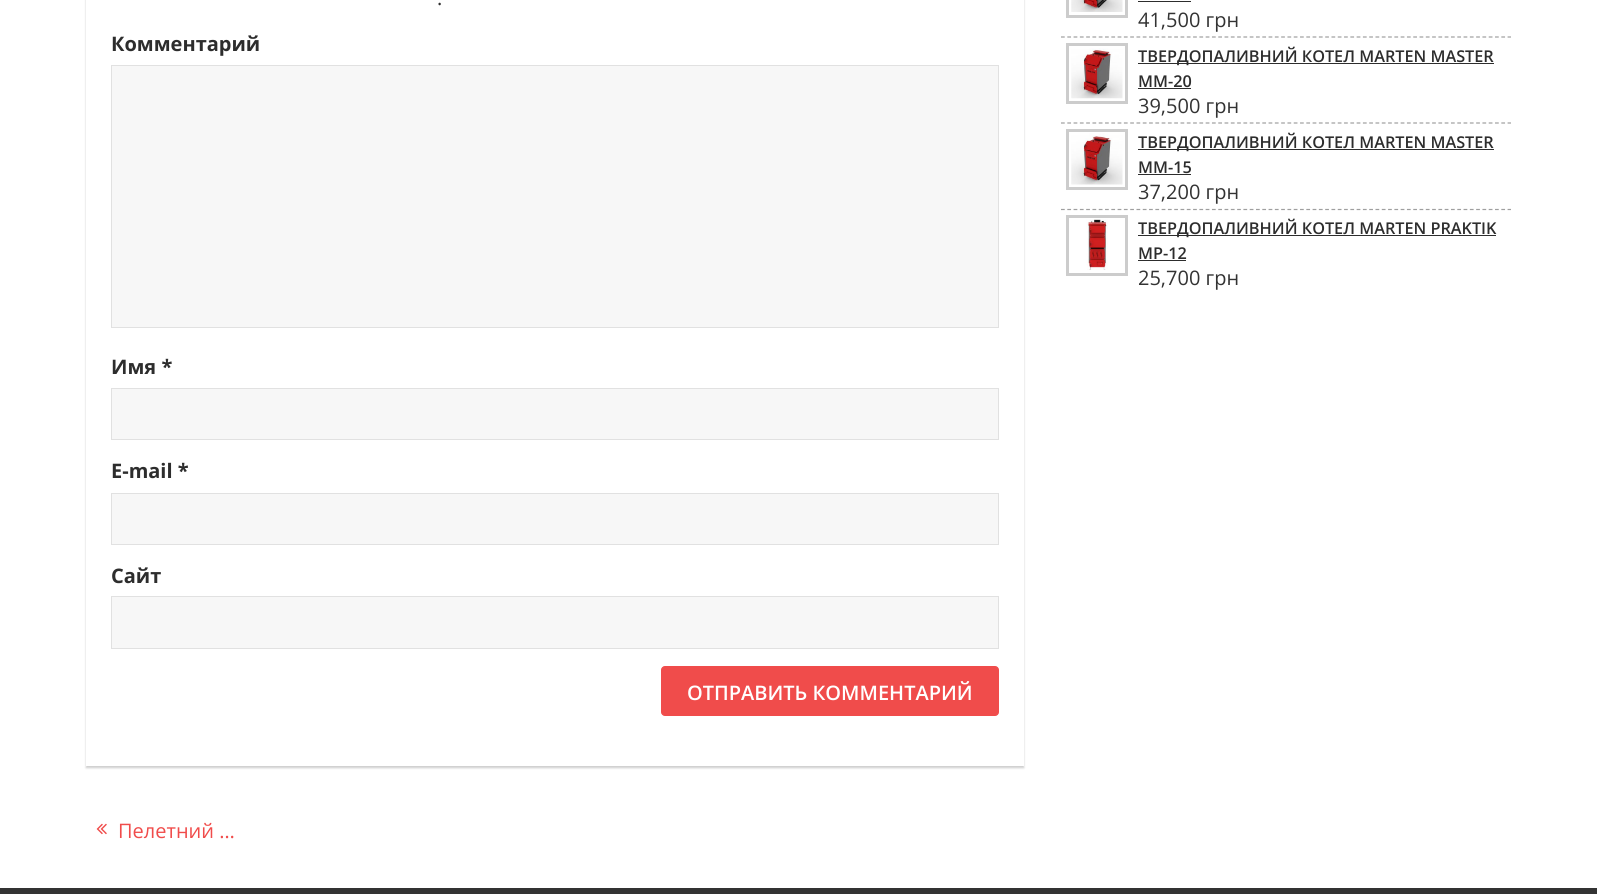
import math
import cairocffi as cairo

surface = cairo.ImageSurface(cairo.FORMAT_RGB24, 1597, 894)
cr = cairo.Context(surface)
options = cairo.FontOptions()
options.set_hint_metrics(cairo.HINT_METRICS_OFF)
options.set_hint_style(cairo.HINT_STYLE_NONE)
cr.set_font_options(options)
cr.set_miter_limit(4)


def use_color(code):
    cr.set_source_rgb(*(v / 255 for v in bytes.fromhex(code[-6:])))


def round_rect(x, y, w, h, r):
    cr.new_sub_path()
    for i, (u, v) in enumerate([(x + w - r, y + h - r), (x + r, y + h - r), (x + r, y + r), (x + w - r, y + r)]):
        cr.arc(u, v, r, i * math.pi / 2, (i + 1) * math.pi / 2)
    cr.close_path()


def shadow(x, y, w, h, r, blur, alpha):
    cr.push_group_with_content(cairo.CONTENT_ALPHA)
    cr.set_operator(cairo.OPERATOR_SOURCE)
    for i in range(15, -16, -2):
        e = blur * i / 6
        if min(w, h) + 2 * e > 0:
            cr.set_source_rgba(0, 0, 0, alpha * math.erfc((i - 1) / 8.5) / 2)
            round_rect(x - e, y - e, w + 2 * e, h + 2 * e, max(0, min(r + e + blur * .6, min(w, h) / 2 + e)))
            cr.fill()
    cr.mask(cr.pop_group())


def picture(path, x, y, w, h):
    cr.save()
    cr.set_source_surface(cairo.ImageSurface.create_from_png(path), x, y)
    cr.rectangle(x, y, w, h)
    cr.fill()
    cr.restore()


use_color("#ffffff")
cr.paint()
use_color("#000000")
shadow(86, -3, 938, 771, 0, 1, 0.2)
use_color("#ffffff")
cr.rectangle(86, 0, 938, 766)
cr.fill()
cr.select_font_face("Open Sans")
cr.set_font_size(20)
use_color("#2d2d2d")
cr.move_to(437, 5)
cr.show_text(".")
cr.select_font_face("Open Sans", cairo.FONT_SLANT_NORMAL, cairo.FONT_WEIGHT_BOLD)
cr.move_to(111, 51)
cr.show_text("Комментарий")
use_color("#f7f7f7")
cr.rectangle(111.5, 65.5, 887, 262)
cr.fill_preserve()
use_color("#e1e1e1")
cr.set_line_width(1)
cr.stroke()
use_color("#2d2d2d")
cr.move_to(111, 374)
cr.show_text("Имя *")
use_color("#f7f7f7")
cr.rectangle(111.5, 388.5, 887, 51)
cr.fill_preserve()
use_color("#e1e1e1")
cr.stroke()
use_color("#2d2d2d")
cr.move_to(111, 478)
cr.show_text("E-mail *")
use_color("#f7f7f7")
cr.rectangle(111.5, 493.5, 887, 51)
cr.fill_preserve()
use_color("#e1e1e1")
cr.stroke()
use_color("#2d2d2d")
cr.move_to(111, 583)
cr.show_text("Сайт")
use_color("#f7f7f7")
cr.rectangle(111.5, 596.5, 887, 52)
cr.fill_preserve()
use_color("#e1e1e1")
cr.stroke()
use_color("#f04c4b")
round_rect(661.5, 666.5, 337, 49, 3.5)
cr.fill_preserve()
cr.stroke()
cr.select_font_face("Open Sans SemiBold")
use_color("#ffffff")
cr.move_to(687, 700)
cr.show_text("ОТПРАВИТЬ КОММЕНТАРИЙ")
picture("img1.png", 96, 823, 11, 12)
cr.select_font_face("Open Sans")
use_color("#f04c4b")
cr.move_to(118, 838)
cr.show_text("Пелетний …")
cr.new_path()
cr.move_to(1061, 37)
cr.line_to(1511, 37)
use_color("#9f9f9f")
cr.set_line_width(1.2)
cr.set_dash([3.75, 2.54])
cr.stroke()
cr.rectangle(1067.5, -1.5, 59, 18)
use_color("#cccccc")
cr.set_line_width(3)
cr.set_dash([])
cr.stroke()
picture("img2.png", 1071, 0, 52, 12)
use_color("#2d2d2d")
cr.rectangle(1138, 1, 53, 1)
cr.fill()
use_color("#333333")
cr.move_to(1138, 27)
cr.show_text("41,500 грн")
cr.new_path()
cr.move_to(1061, 123)
cr.line_to(1511, 123)
use_color("#9f9f9f")
cr.set_line_width(1.2)
cr.set_dash([3.75, 2.54])
cr.stroke()
cr.rectangle(1067.5, 44.5, 59, 58)
use_color("#cccccc")
cr.set_line_width(3)
cr.set_dash([])
cr.stroke()
picture("img3.png", 1071, 48, 52, 51)
use_color("#2d2d2d")
cr.rectangle(1138, 63, 356, 1)
cr.fill()
cr.select_font_face("Open Sans SemiBold")
cr.set_font_size(16.25)
cr.move_to(1138, 62)
cr.show_text("ТВЕРДОПАЛИВНИЙ КОТЕЛ MARTEN MASTER")
cr.move_to(1138, 87)
cr.show_text("MM-20")
cr.rectangle(1138, 88, 53, 1)
cr.fill()
cr.select_font_face("Open Sans")
cr.set_font_size(20)
use_color("#333333")
cr.move_to(1138, 113)
cr.show_text("39,500 грн")
cr.new_path()
cr.move_to(1061, 209.5)
cr.line_to(1511, 209.5)
use_color("#9f9f9f")
cr.set_line_width(1.2)
cr.set_dash([3.75, 2.54])
cr.stroke()
cr.rectangle(1067.5, 130.5, 59, 58)
use_color("#cccccc")
cr.set_line_width(3)
cr.set_dash([])
cr.stroke()
picture("img4.png", 1071, 133, 52, 52)
use_color("#2d2d2d")
cr.rectangle(1138, 149, 356, 1)
cr.fill()
cr.select_font_face("Open Sans SemiBold")
cr.set_font_size(16.25)
cr.move_to(1138, 148)
cr.show_text("ТВЕРДОПАЛИВНИЙ КОТЕЛ MARTEN MASTER")
cr.move_to(1138, 173)
cr.show_text("MМ-15")
cr.rectangle(1138, 174, 53, 1)
cr.fill()
cr.select_font_face("Open Sans")
cr.set_font_size(20)
use_color("#333333")
cr.move_to(1138, 199)
cr.show_text("37,200 грн")
cr.rectangle(1067.5, 216.5, 59, 58)
use_color("#cccccc")
cr.stroke()
picture("img5.png", 1086, 219, 22, 51)
use_color("#2d2d2d")
cr.rectangle(1138, 235, 358, 1)
cr.fill()
cr.select_font_face("Open Sans SemiBold")
cr.set_font_size(16.25)
cr.move_to(1138, 234)
cr.show_text("ТВЕРДОПАЛИВНИЙ КОТЕЛ MARTEN PRAKTIK")
cr.move_to(1138, 259)
cr.show_text("MP-12")
cr.rectangle(1138, 260, 48, 1)
cr.fill()
cr.select_font_face("Open Sans")
cr.set_font_size(20)
use_color("#333333")
cr.move_to(1138, 285)
cr.show_text("25,700 грн")
cr.rectangle(0, 888, 1597, 6)
cr.fill()
surface.write_to_png("result.png")
